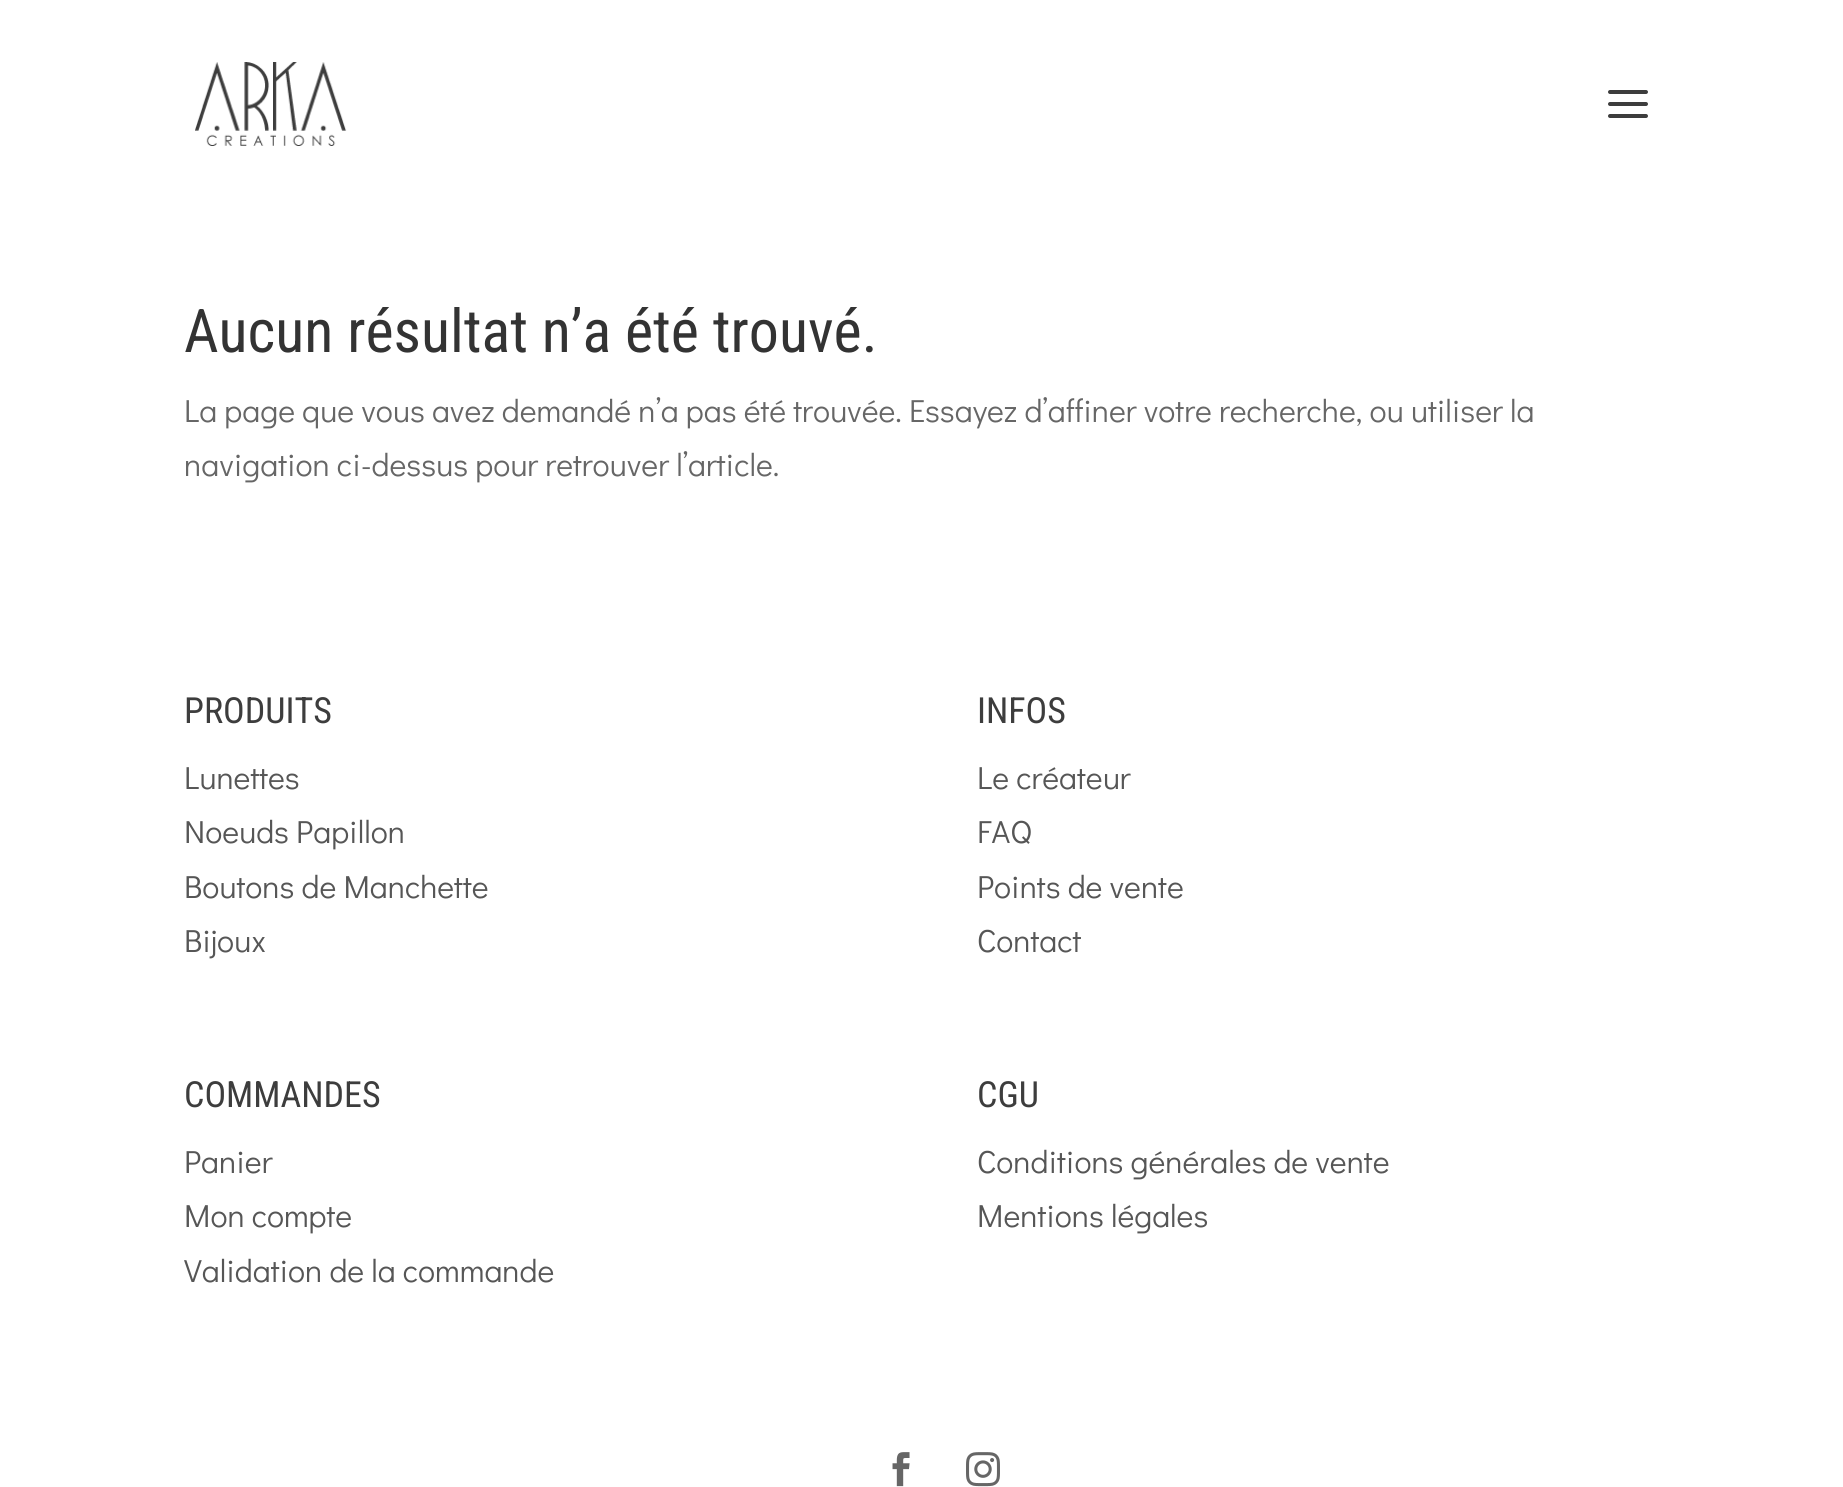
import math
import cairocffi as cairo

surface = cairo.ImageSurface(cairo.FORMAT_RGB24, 1843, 1487)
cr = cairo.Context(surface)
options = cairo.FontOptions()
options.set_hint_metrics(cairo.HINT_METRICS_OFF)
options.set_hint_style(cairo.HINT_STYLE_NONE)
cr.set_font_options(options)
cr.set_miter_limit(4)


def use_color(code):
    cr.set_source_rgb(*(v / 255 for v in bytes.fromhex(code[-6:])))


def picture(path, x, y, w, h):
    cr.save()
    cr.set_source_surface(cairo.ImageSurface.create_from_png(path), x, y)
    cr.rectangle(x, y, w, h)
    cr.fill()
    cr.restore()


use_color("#ffffff")
cr.paint()
picture("img1.png", 195, 62, 152, 84)
picture("img2.png", 1608, 90, 40, 28)
cr.select_font_face("Roboto Condensed")
cr.set_font_size(60)
use_color("#333333")
cr.move_to(184, 352)
cr.show_text("Aucun résultat n’a été trouvé.")
cr.select_font_face("Didact Gothic")
cr.set_font_size(32)
use_color("#666666")
cr.move_to(184, 422)
cr.show_text("La page que vous avez demandé n’a pas été trouvée. Essayez d’affiner votre recherche, ou utiliser la")
cr.move_to(184, 476)
cr.show_text("navigation ci-dessus pour retrouver l’article.")
cr.select_font_face("Roboto Condensed")
cr.set_font_size(36)
use_color("#3d3d3d")
cr.move_to(184, 723)
cr.show_text("PRODUITS")
cr.select_font_face("Didact Gothic")
cr.set_font_size(32)
use_color("#565656")
cr.move_to(184, 789)
cr.show_text("Lunettes")
cr.move_to(184, 843)
cr.show_text("Noeuds Papillon")
cr.move_to(184, 898)
cr.show_text("Boutons de Manchette")
cr.move_to(184, 952)
cr.show_text("Bijoux")
cr.select_font_face("Roboto Condensed")
cr.set_font_size(36)
use_color("#3d3d3d")
cr.move_to(977, 723)
cr.show_text("INFOS")
cr.select_font_face("Didact Gothic")
cr.set_font_size(32)
use_color("#565656")
cr.move_to(977, 789)
cr.show_text("Le créateur")
cr.move_to(977, 843)
cr.show_text("FAQ")
cr.move_to(977, 898)
cr.show_text("Points de vente")
cr.move_to(977, 952)
cr.show_text("Contact")
cr.select_font_face("Roboto Condensed")
cr.set_font_size(36)
use_color("#3d3d3d")
cr.move_to(184, 1107)
cr.show_text("COMMANDES")
cr.select_font_face("Didact Gothic")
cr.set_font_size(32)
use_color("#565656")
cr.move_to(184, 1173)
cr.show_text("Panier")
cr.move_to(184, 1227)
cr.show_text("Mon compte")
cr.move_to(184, 1282)
cr.show_text("Validation de la commande")
cr.select_font_face("Roboto Condensed")
cr.set_font_size(36)
use_color("#3d3d3d")
cr.move_to(977, 1107)
cr.show_text("CGU")
cr.select_font_face("Didact Gothic")
cr.set_font_size(32)
use_color("#565656")
cr.move_to(977, 1173)
cr.show_text("Conditions générales de vente")
cr.move_to(977, 1227)
cr.show_text("Mentions légales")
picture("img3.png", 892, 1452, 18, 35)
picture("img4.png", 966, 1452, 34, 35)
surface.write_to_png("result.png")
